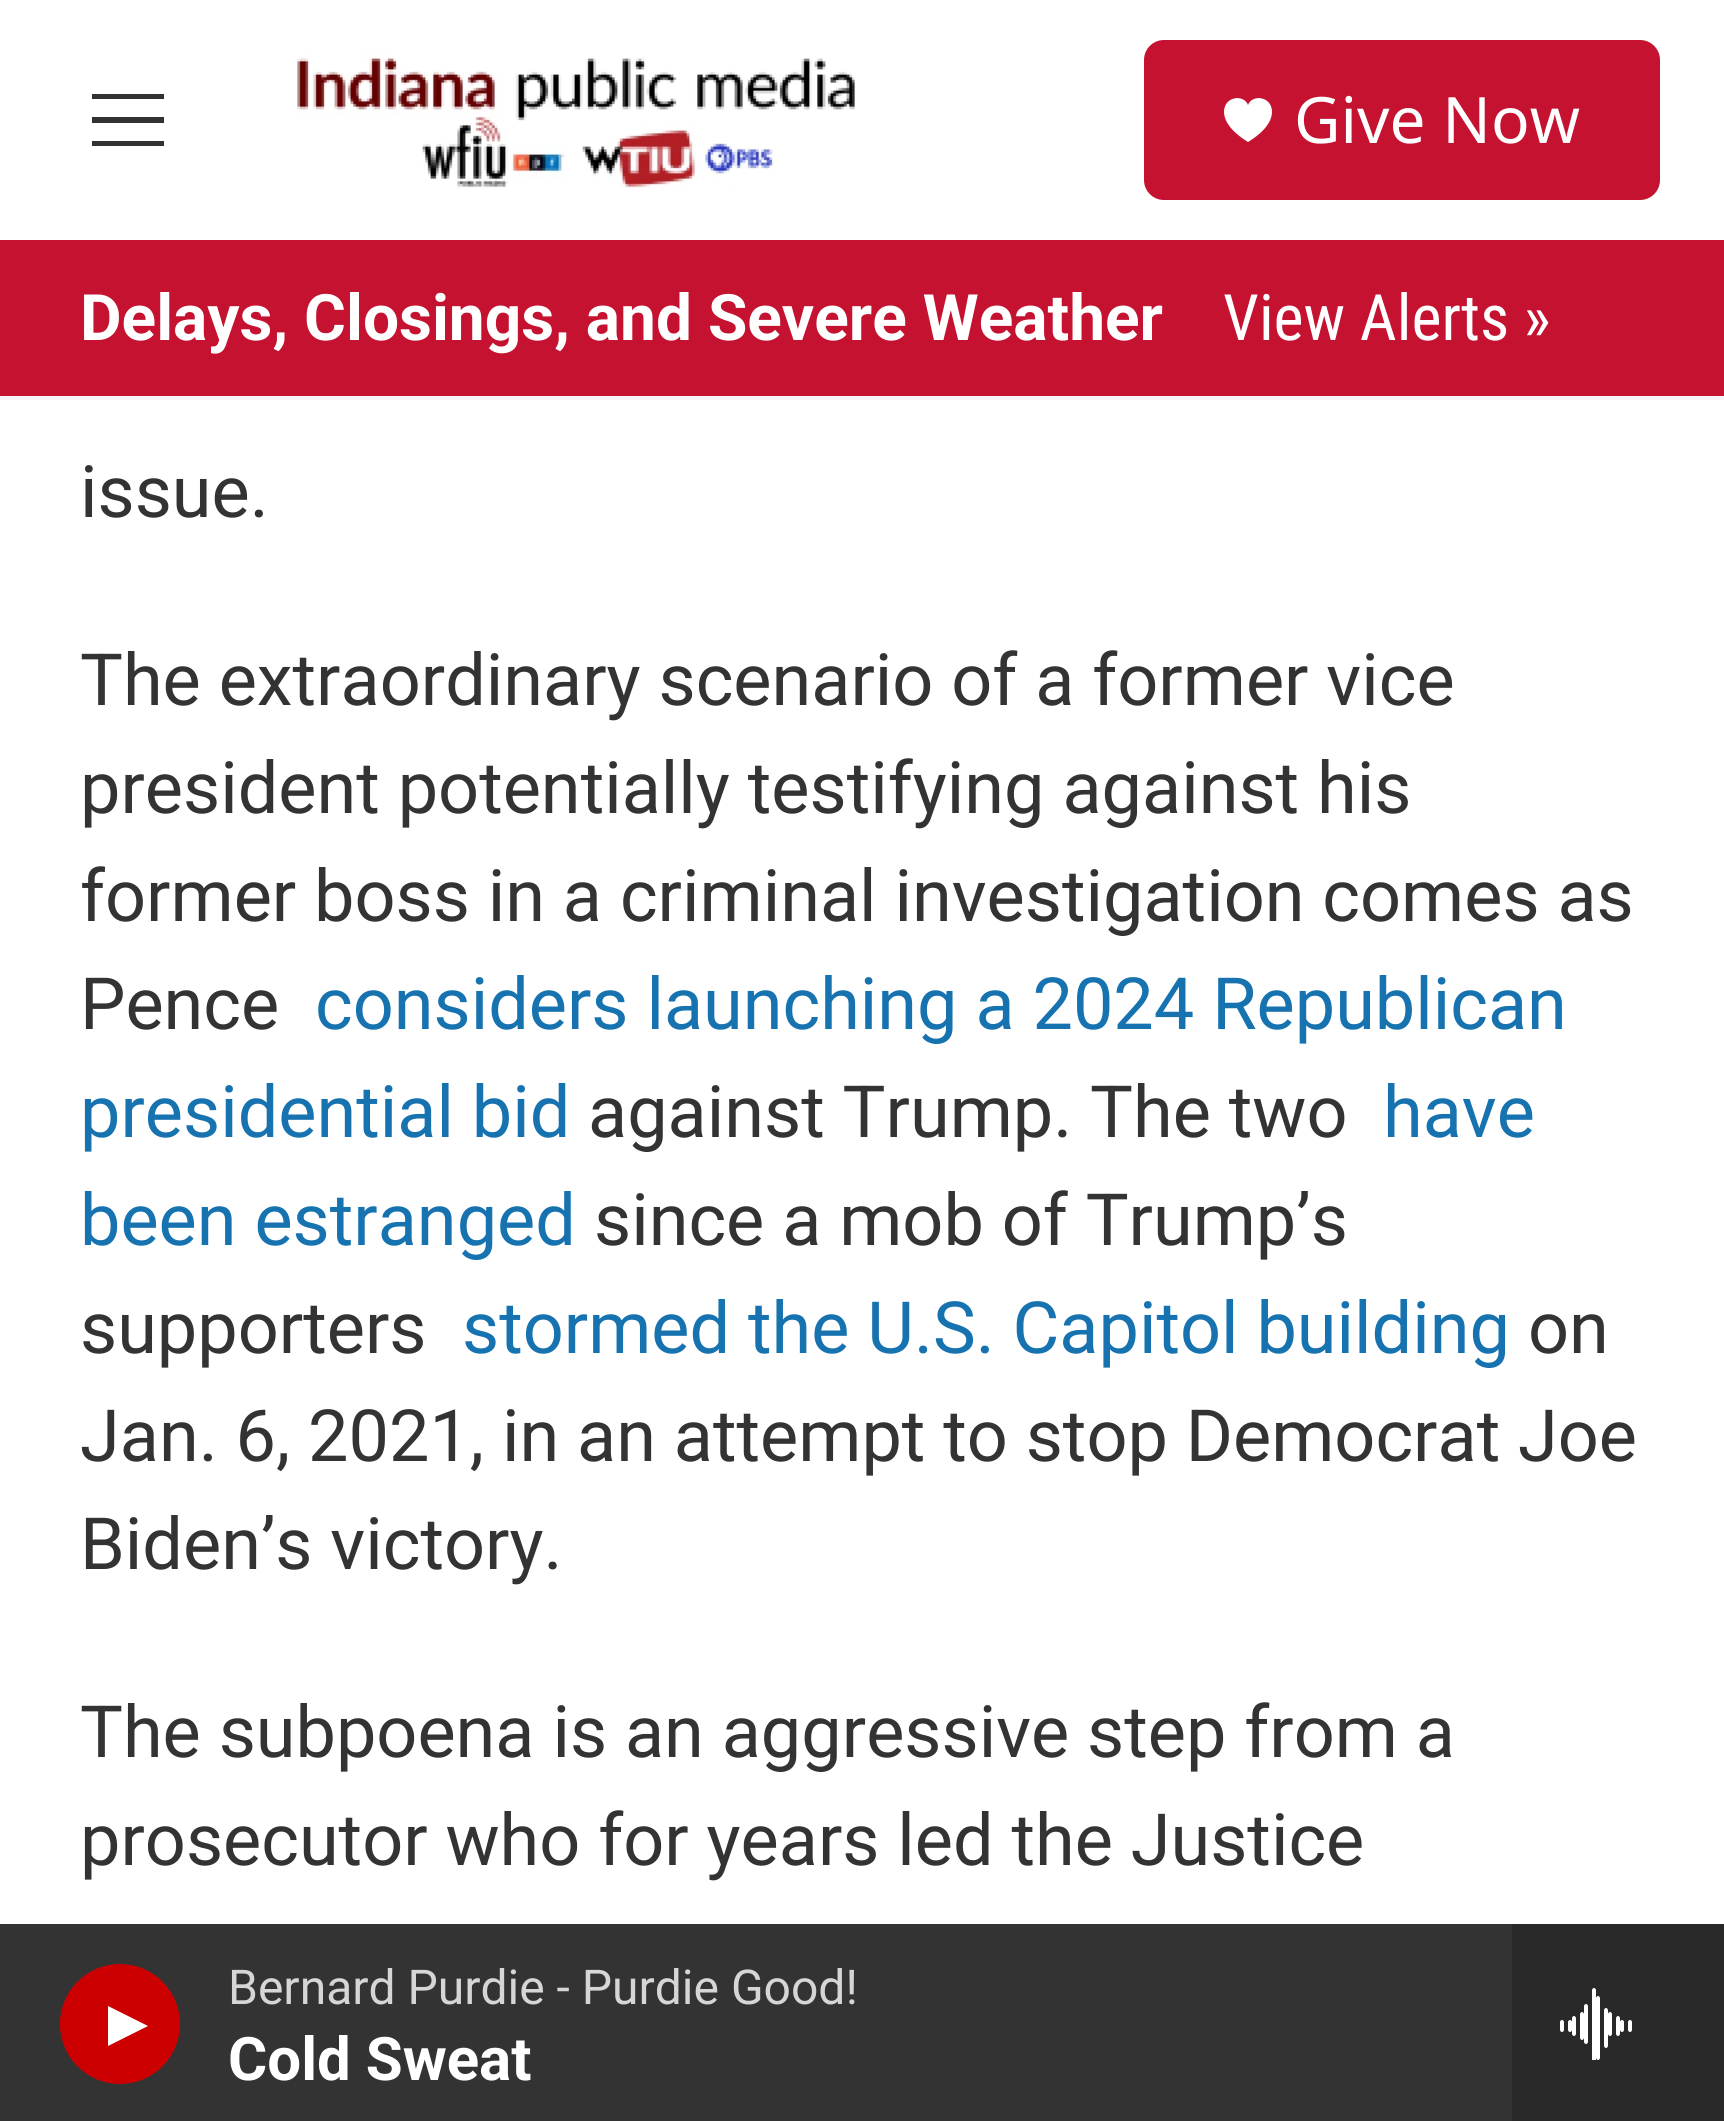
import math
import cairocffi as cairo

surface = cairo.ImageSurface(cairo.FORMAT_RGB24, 1724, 2121)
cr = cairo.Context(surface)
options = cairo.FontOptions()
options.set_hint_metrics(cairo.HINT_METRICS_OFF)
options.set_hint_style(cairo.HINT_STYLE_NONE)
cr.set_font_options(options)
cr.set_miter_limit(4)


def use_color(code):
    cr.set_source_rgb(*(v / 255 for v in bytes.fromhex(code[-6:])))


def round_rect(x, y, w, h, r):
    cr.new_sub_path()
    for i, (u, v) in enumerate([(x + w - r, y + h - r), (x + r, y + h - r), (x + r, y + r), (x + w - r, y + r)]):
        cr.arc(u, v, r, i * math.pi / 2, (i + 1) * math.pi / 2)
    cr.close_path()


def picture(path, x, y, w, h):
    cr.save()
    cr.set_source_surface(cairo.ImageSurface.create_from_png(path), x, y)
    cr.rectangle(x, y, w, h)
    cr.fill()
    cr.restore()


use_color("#ffffff")
cr.paint()
use_color("#f5f5f5")
cr.rectangle(0, 396, 1724, 4)
cr.fill()
use_color("#333333")
cr.set_fill_rule(cairo.FILL_RULE_EVEN_ODD)
cr.new_path()
cr.move_to(92, 123)
cr.line_to(92, 117)
cr.line_to(164, 117)
cr.line_to(164, 123)
cr.close_path()
cr.move_to(92, 99)
cr.line_to(92, 94)
cr.line_to(164, 94)
cr.line_to(164, 99)
cr.close_path()
cr.move_to(92, 146)
cr.line_to(92, 141)
cr.line_to(164, 141)
cr.line_to(164, 146)
cr.close_path()
cr.fill()
picture("img1.png", 297, 52, 558, 137)
use_color("#c41230")
round_rect(1144, 40, 516, 160, 20)
cr.fill()
use_color("#ffffff")
cr.set_fill_rule(cairo.FILL_RULE_WINDING)
cr.new_path()
cr.move_to(1248, 105)
cr.curve_to(1244, 94, 1224, 96, 1224, 112)
cr.curve_to(1224, 120, 1230, 131, 1248, 142)
cr.curve_to(1266, 131, 1272, 120, 1272, 112)
cr.curve_to(1272, 96, 1252, 94, 1248, 105)
cr.close_path()
cr.fill()
cr.select_font_face("Noto Sans")
cr.set_font_size(64)
cr.move_to(1294, 143)
cr.show_text("Give Now")
use_color("#c41230")
cr.rectangle(0, 240, 1724, 156)
cr.fill()
cr.select_font_face("Roboto", cairo.FONT_SLANT_NORMAL, cairo.FONT_WEIGHT_BOLD)
use_color("#ffffff")
cr.move_to(80, 340)
cr.show_text("Delays, Closings, and Severe Weather")
cr.select_font_face("Roboto Condensed")
cr.move_to(1223, 340)
cr.show_text("View Alerts »")
use_color("#333333")
cr.rectangle(0, 1924, 1512, 197)
cr.fill()
use_color("#cc0000")
cr.arc(120, 2024, 60, 0, 2 * math.pi)
cr.fill()
use_color("#ffffff")
cr.new_path()
cr.move_to(108, 2006)
cr.line_to(148, 2026)
cr.line_to(108, 2046)
cr.close_path()
cr.fill()
cr.select_font_face("Roboto")
cr.set_font_size(48)
use_color("#d6d6d6")
cr.move_to(228, 2004)
cr.show_text("Bernard Purdie - Purdie Good!")
cr.select_font_face("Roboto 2", cairo.FONT_SLANT_NORMAL, cairo.FONT_WEIGHT_BOLD)
cr.set_font_size(60)
use_color("#ffffff")
cr.move_to(228, 2080)
cr.show_text("Cold Sweat")
use_color("#292929")
cr.rectangle(1512, 1924, 212, 197)
cr.fill()
picture("img2.png", 1560, 1988, 72, 72)
cr.select_font_face("Roboto")
cr.set_font_size(72)
use_color("#333333")
cr.move_to(80, 517)
cr.show_text("issue.")
cr.move_to(80, 705)
cr.show_text("The extraordinary scenario of a former vice")
cr.move_to(80, 813)
cr.show_text("president potentially testifying against his")
cr.move_to(80, 921)
cr.show_text("former boss in a criminal investigation comes as")
cr.move_to(80, 1029)
cr.show_text("Pence")
use_color("#1772b0")
cr.move_to(315, 1029)
cr.show_text("considers launching a 2024 Republican")
cr.move_to(80, 1137)
cr.show_text("presidential bid")
use_color("#333333")
cr.move_to(588, 1137)
cr.show_text("against Trump. The two")
use_color("#1772b0")
cr.move_to(1383, 1137)
cr.show_text("have")
cr.move_to(80, 1245)
cr.show_text("been estranged")
use_color("#333333")
cr.move_to(594, 1245)
cr.show_text("since a mob of Trump’s")
cr.move_to(80, 1353)
cr.show_text("supporters")
use_color("#1772b0")
cr.move_to(462, 1353)
cr.show_text("stormed the U.S. Capitol building")
use_color("#333333")
cr.move_to(1528, 1353)
cr.show_text("on")
cr.move_to(80, 1461)
cr.show_text("Jan. 6, 2021, in an attempt to stop Democrat Joe")
cr.move_to(80, 1569)
cr.show_text("Biden’s victory.")
cr.move_to(80, 1757)
cr.show_text("The subpoena is an aggressive step from a")
cr.move_to(80, 1865)
cr.show_text("prosecutor who for years led the Justice")
surface.write_to_png("result.png")
